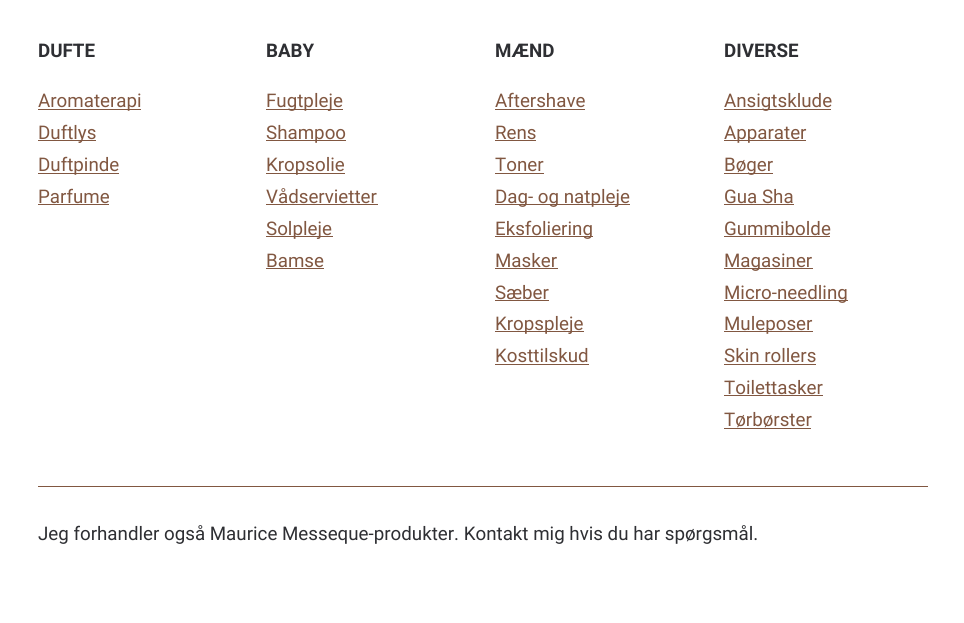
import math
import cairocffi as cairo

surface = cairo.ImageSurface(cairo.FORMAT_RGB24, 964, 623)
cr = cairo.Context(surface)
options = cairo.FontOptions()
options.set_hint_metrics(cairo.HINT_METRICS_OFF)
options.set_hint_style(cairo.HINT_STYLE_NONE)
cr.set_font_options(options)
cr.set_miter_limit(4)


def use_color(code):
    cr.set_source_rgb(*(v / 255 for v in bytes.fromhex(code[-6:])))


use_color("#ffffff")
cr.paint()
cr.select_font_face("Roboto", cairo.FONT_SLANT_NORMAL, cairo.FONT_WEIGHT_BOLD)
cr.set_font_size(18.75)
use_color("#2e2f33")
cr.move_to(38, 57)
cr.show_text("DUFTE")
use_color("#815741")
cr.rectangle(38, 109, 103, 1)
cr.fill()
cr.select_font_face("Roboto")
cr.move_to(38, 107)
cr.show_text("Aromaterapi")
cr.rectangle(38, 140, 58, 1)
cr.fill()
cr.move_to(38, 139)
cr.show_text("Duftlys")
cr.rectangle(38, 173, 81, 1)
cr.fill()
cr.move_to(38, 171)
cr.show_text("Duftpinde")
cr.move_to(38, 203)
cr.show_text("Parfume")
cr.rectangle(38, 204, 71, 1)
cr.fill()
cr.select_font_face("Roboto", cairo.FONT_SLANT_NORMAL, cairo.FONT_WEIGHT_BOLD)
use_color("#2e2f33")
cr.move_to(266, 57)
cr.show_text("BABY")
use_color("#815741")
cr.rectangle(266, 109, 77, 1)
cr.fill()
cr.select_font_face("Roboto")
cr.move_to(266, 107)
cr.show_text("Fugtpleje")
cr.rectangle(266, 140, 80, 1)
cr.fill()
cr.move_to(266, 139)
cr.show_text("Shampoo")
cr.rectangle(266, 173, 79, 1)
cr.fill()
cr.move_to(266, 171)
cr.show_text("Kropsolie")
cr.move_to(266, 203)
cr.show_text("Vådservietter")
cr.rectangle(266, 204, 112, 1)
cr.fill()
cr.rectangle(266, 236, 67, 1)
cr.fill()
cr.move_to(266, 235)
cr.show_text("Solpleje")
cr.move_to(266, 267)
cr.show_text("Bamse")
cr.rectangle(266, 268, 58, 1)
cr.fill()
cr.select_font_face("Roboto", cairo.FONT_SLANT_NORMAL, cairo.FONT_WEIGHT_BOLD)
use_color("#2e2f33")
cr.move_to(495, 57)
cr.show_text("MÆND")
cr.select_font_face("Roboto")
use_color("#815741")
cr.move_to(495, 107)
cr.show_text("Aftershave")
cr.rectangle(495, 109, 90, 1)
cr.fill()
cr.move_to(495, 139)
cr.show_text("Rens")
cr.rectangle(495, 140, 41, 1)
cr.fill()
cr.move_to(495, 171)
cr.show_text("Toner")
cr.rectangle(495, 173, 49, 1)
cr.fill()
cr.rectangle(495, 204, 135, 1)
cr.fill()
cr.move_to(495, 203)
cr.show_text("Dag- og natpleje")
cr.rectangle(495, 236, 98, 1)
cr.fill()
cr.move_to(495, 235)
cr.show_text("Eksfoliering")
cr.move_to(495, 267)
cr.show_text("Masker")
cr.rectangle(495, 268, 63, 1)
cr.fill()
cr.move_to(495, 299)
cr.show_text("Sæber")
cr.rectangle(495, 300, 54, 1)
cr.fill()
cr.rectangle(495, 331, 89, 1)
cr.fill()
cr.move_to(495, 330)
cr.show_text("Kropspleje")
cr.move_to(495, 362)
cr.show_text("Kosttilskud")
cr.rectangle(495, 364, 94, 1)
cr.fill()
cr.select_font_face("Roboto", cairo.FONT_SLANT_NORMAL, cairo.FONT_WEIGHT_BOLD)
use_color("#2e2f33")
cr.move_to(724, 57)
cr.show_text("DIVERSE")
use_color("#815741")
cr.rectangle(724, 109, 107, 1)
cr.fill()
cr.select_font_face("Roboto")
cr.move_to(724, 107)
cr.show_text("Ansigtsklude")
cr.rectangle(724, 140, 82, 1)
cr.fill()
cr.move_to(724, 139)
cr.show_text("Apparater")
cr.rectangle(724, 173, 49, 1)
cr.fill()
cr.move_to(724, 171)
cr.show_text("Bøger")
cr.move_to(724, 203)
cr.show_text("Gua Sha")
cr.rectangle(724, 204, 70, 1)
cr.fill()
cr.move_to(724, 235)
cr.show_text("Gummibolde")
cr.rectangle(724, 236, 106, 1)
cr.fill()
cr.rectangle(724, 268, 89, 1)
cr.fill()
cr.move_to(724, 267)
cr.show_text("Magasiner")
cr.rectangle(724, 300, 124, 1)
cr.fill()
cr.move_to(724, 299)
cr.show_text("Micro-needling")
cr.rectangle(724, 331, 89, 1)
cr.fill()
cr.move_to(724, 330)
cr.show_text("Muleposer")
cr.move_to(724, 362)
cr.show_text("Skin rollers")
cr.rectangle(724, 364, 92, 1)
cr.fill()
cr.move_to(724, 394)
cr.show_text("Toilettasker")
cr.rectangle(724, 395, 99, 1)
cr.fill()
cr.move_to(724, 426)
cr.show_text("Tørbørster")
cr.rectangle(724, 428, 87, 1)
cr.fill()
cr.rectangle(38, 486, 890, 1)
cr.fill()
use_color("#2e2f33")
cr.move_to(38, 540)
cr.show_text("Jeg forhandler også Maurice Messeque-produkter. Kontakt mig hvis du har spørgsmål.")
surface.write_to_png("result.png")
